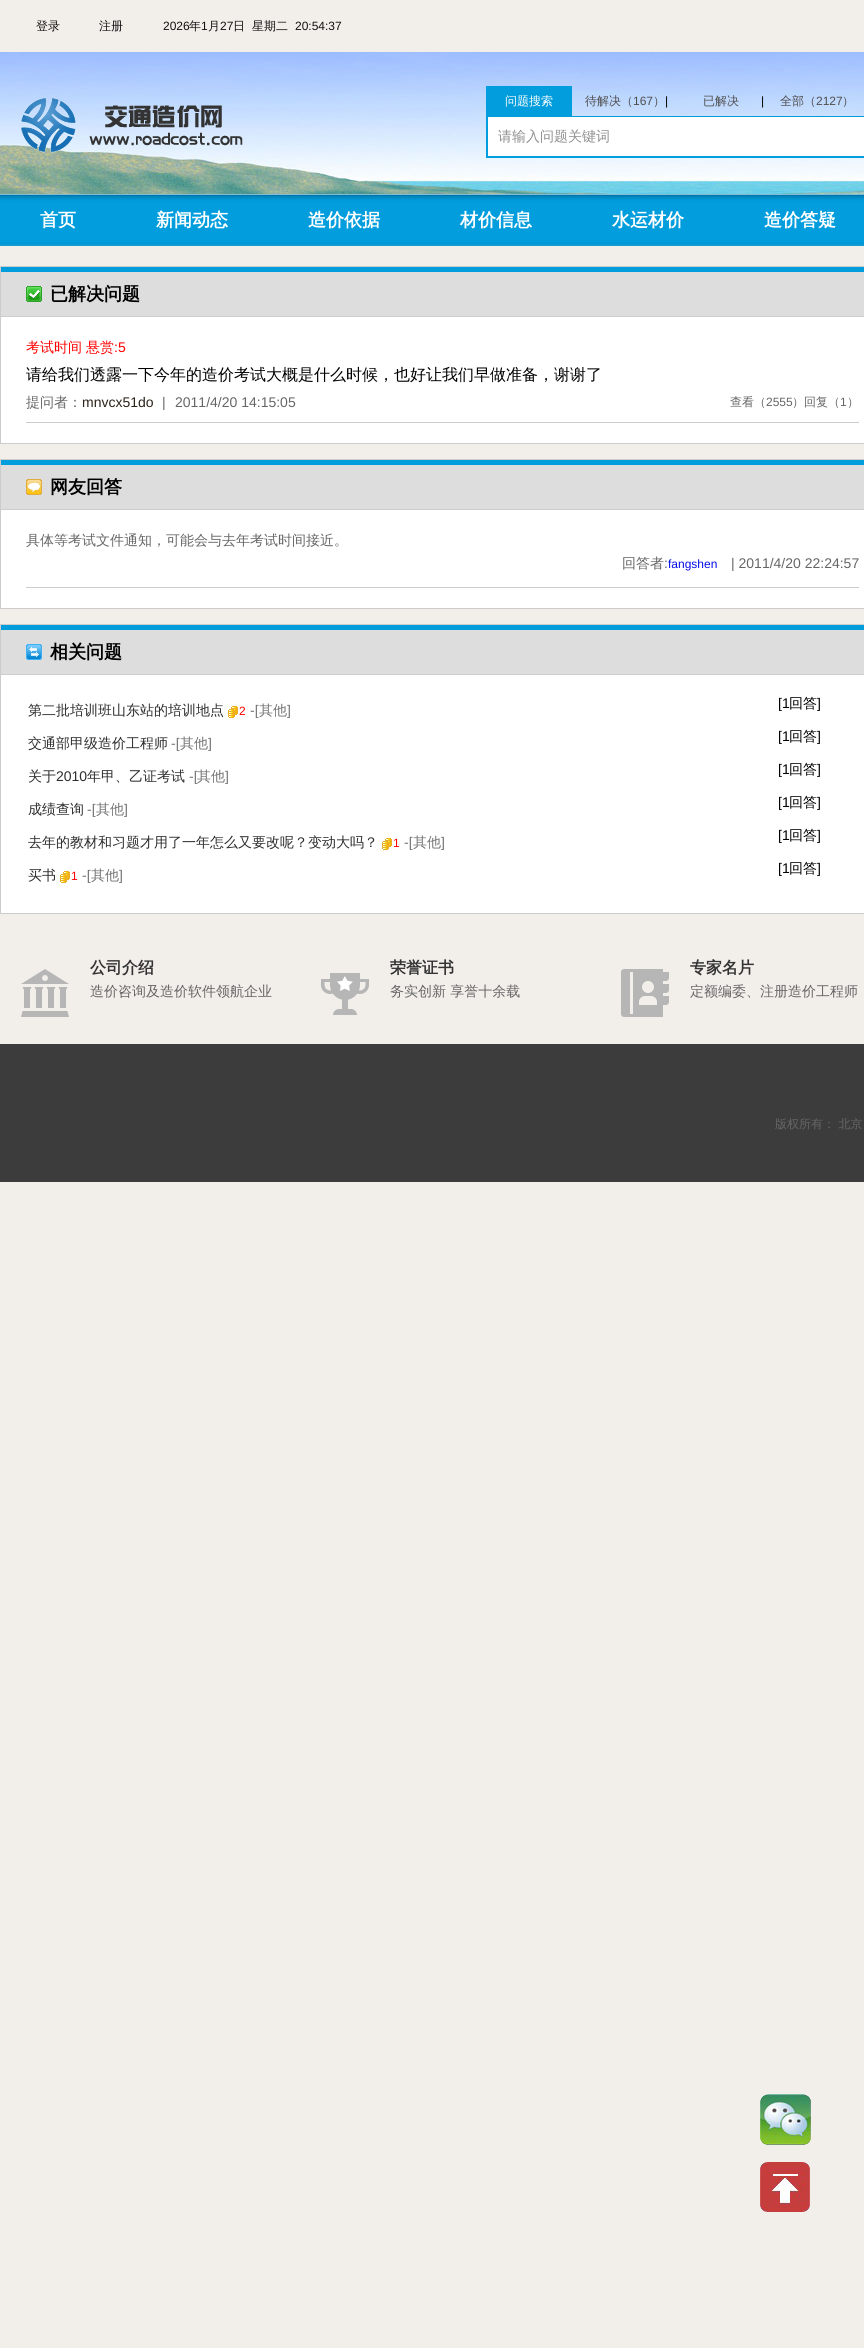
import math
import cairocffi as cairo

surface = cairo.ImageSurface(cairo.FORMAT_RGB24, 864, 2348)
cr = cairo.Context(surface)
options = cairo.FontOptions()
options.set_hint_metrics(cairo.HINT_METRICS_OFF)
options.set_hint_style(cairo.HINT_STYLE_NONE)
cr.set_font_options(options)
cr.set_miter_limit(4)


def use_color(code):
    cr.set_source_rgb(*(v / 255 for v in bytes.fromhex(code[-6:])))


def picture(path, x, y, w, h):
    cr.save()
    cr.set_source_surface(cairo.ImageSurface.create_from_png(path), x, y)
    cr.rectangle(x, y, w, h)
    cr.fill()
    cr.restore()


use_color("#f2efeb")
cr.paint()
cr.select_font_face("WenQuanYi Zen Hei Medium")
cr.set_font_size(12)
use_color("#121010")
cr.move_to(36, 30)
cr.show_text("登录")
cr.move_to(99, 30)
cr.show_text("注册")
cr.select_font_face("Liberation Sans")
cr.move_to(163, 30)
cr.show_text("2026")
cr.select_font_face("WenQuanYi Zen Hei Medium")
cr.move_to(189, 30)
cr.show_text("年")
cr.select_font_face("Liberation Sans")
cr.move_to(201, 30)
cr.show_text("1")
cr.select_font_face("WenQuanYi Zen Hei Medium")
cr.move_to(208, 30)
cr.show_text("月")
cr.select_font_face("Liberation Sans")
cr.move_to(220, 30)
cr.show_text("27")
cr.select_font_face("WenQuanYi Zen Hei Medium")
cr.move_to(233, 30)
cr.show_text("日")
cr.move_to(252, 30)
cr.show_text("星期二")
cr.select_font_face("Liberation Sans")
cr.move_to(295, 30)
cr.show_text("20:54:37")
picture("img1.png", 0, 52, 864, 142)
picture("img2.png", 21, 97, 222, 56)
use_color("#019ddd")
cr.rectangle(486, 86, 86, 30)
cr.fill()
cr.select_font_face("WenQuanYi Zen Hei Medium")
use_color("#ffffff")
cr.move_to(505, 105)
cr.show_text("问题搜索")
use_color("#4f4d4d")
cr.move_to(585, 105)
cr.show_text("待解决（")
cr.select_font_face("Liberation Sans")
cr.move_to(633, 105)
cr.show_text("167")
cr.select_font_face("WenQuanYi Zen Hei Medium")
cr.move_to(653, 105)
cr.show_text("）")
cr.select_font_face("Liberation Sans")
use_color("#000000")
cr.move_to(665, 105)
cr.show_text("|")
cr.select_font_face("WenQuanYi Zen Hei Medium")
use_color("#4f4d4d")
cr.move_to(703, 105)
cr.show_text("已解决")
cr.select_font_face("Liberation Sans")
use_color("#000000")
cr.move_to(761, 105)
cr.show_text("|")
cr.select_font_face("WenQuanYi Zen Hei Medium")
use_color("#4f4d4d")
cr.move_to(780, 105)
cr.show_text("全部（")
cr.select_font_face("Liberation Sans")
cr.move_to(816, 105)
cr.show_text("2127")
cr.select_font_face("WenQuanYi Zen Hei Medium")
cr.move_to(842, 105)
cr.show_text("）")
use_color("#019ddd")
cr.rectangle(486, 116, 378, 42)
cr.fill()
use_color("#ffffff")
cr.rectangle(488, 117, 376, 39)
cr.fill()
cr.set_font_size(14)
use_color("#918f8f")
cr.move_to(498, 141)
cr.show_text("请输入问题关键词")
picture("img3.png", 0, 194, 864, 52)
cr.select_font_face("WenQuanYi Zen Hei", cairo.FONT_SLANT_NORMAL, cairo.FONT_WEIGHT_BOLD)
cr.set_font_size(18)
use_color("#ffffff")
cr.move_to(40, 226)
cr.show_text("首页")
cr.move_to(156, 226)
cr.show_text("新闻动态")
cr.move_to(308, 226)
cr.show_text("造价依据")
cr.move_to(460, 226)
cr.show_text("材价信息")
cr.move_to(612, 226)
cr.show_text("水运材价")
cr.move_to(764, 226)
cr.show_text("造价答疑")
cr.rectangle(1, 317, 863, 126)
cr.fill()
cr.rectangle(0.5, 266.5, 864, 177)
use_color("#cccccc")
cr.set_line_width(1)
cr.stroke()
use_color("#dddddd")
cr.rectangle(1, 272, 863, 44)
cr.fill()
use_color("#019ddd")
cr.rectangle(1, 267, 863, 5)
cr.fill()
use_color("#cccccc")
cr.rectangle(1, 316, 863, 1)
cr.fill()
picture("img4.png", 26, 286, 16, 16)
use_color("#000000")
cr.move_to(50, 300)
cr.show_text("已解决问题")
use_color("#cccccc")
cr.rectangle(26, 422, 833, 1)
cr.fill()
cr.select_font_face("WenQuanYi Zen Hei Medium")
cr.set_font_size(14)
use_color("#ff0000")
cr.move_to(26, 352)
cr.show_text("考试时间")
cr.move_to(86, 352)
cr.show_text("悬赏")
cr.select_font_face("Liberation Sans")
cr.move_to(114, 352)
cr.show_text(":5")
cr.select_font_face("WenQuanYi Zen Hei Medium")
cr.set_font_size(16)
use_color("#000000")
cr.move_to(26, 380)
cr.show_text("请给我们透露一下今年的造价考试大概是什么时候，也好让我们早做准备，谢谢了")
cr.set_font_size(14)
use_color("#666666")
cr.move_to(26, 407)
cr.show_text("提问者：")
cr.select_font_face("Liberation Sans")
use_color("#2c2319")
cr.move_to(82, 407)
cr.show_text("mnvcx51do")
use_color("#666666")
cr.move_to(162, 407)
cr.show_text("|")
cr.move_to(175, 407)
cr.show_text("2011/4/20 14:15:05")
cr.select_font_face("WenQuanYi Zen Hei Medium")
cr.set_font_size(12)
cr.move_to(730, 406)
cr.show_text("查看（")
cr.select_font_face("Liberation Sans")
cr.move_to(766, 406)
cr.show_text("2555")
cr.select_font_face("WenQuanYi Zen Hei Medium")
cr.move_to(792, 406)
cr.show_text("）回复（")
cr.select_font_face("Liberation Sans")
cr.move_to(840, 406)
cr.show_text("1")
cr.select_font_face("WenQuanYi Zen Hei Medium")
cr.move_to(847, 406)
cr.show_text("）")
use_color("#ffffff")
cr.rectangle(1, 510, 863, 98)
cr.fill()
cr.rectangle(0.5, 459.5, 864, 149)
use_color("#cccccc")
cr.stroke()
use_color("#dddddd")
cr.rectangle(1, 465, 863, 44)
cr.fill()
use_color("#019ddd")
cr.rectangle(1, 460, 863, 5)
cr.fill()
use_color("#cccccc")
cr.rectangle(1, 509, 863, 1)
cr.fill()
picture("img5.png", 26, 479, 16, 16)
cr.select_font_face("WenQuanYi Zen Hei", cairo.FONT_SLANT_NORMAL, cairo.FONT_WEIGHT_BOLD)
cr.set_font_size(18)
use_color("#000000")
cr.move_to(50, 493)
cr.show_text("网友回答")
use_color("#cccccc")
cr.rectangle(26, 587, 833, 1)
cr.fill()
cr.select_font_face("WenQuanYi Zen Hei Medium")
cr.set_font_size(14)
use_color("#666666")
cr.move_to(26, 545)
cr.show_text("具体等考试文件通知，可能会与去年考试时间接近。")
cr.move_to(622, 568)
cr.show_text("回答者")
cr.select_font_face("Liberation Sans")
cr.move_to(664, 568)
cr.show_text(":")
cr.set_font_size(12)
use_color("#060deb")
cr.move_to(668, 568)
cr.show_text("fangshen")
cr.set_font_size(14)
use_color("#666666")
cr.move_to(731, 568)
cr.show_text("| 2011/4/20 22:24:57")
use_color("#ffffff")
cr.rectangle(1, 675, 863, 238)
cr.fill()
cr.rectangle(0.5, 624.5, 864, 289)
use_color("#cccccc")
cr.stroke()
use_color("#dddddd")
cr.rectangle(1, 630, 863, 44)
cr.fill()
use_color("#019ddd")
cr.rectangle(1, 625, 863, 5)
cr.fill()
use_color("#cccccc")
cr.rectangle(1, 674, 863, 1)
cr.fill()
picture("img6.png", 26, 644, 16, 16)
cr.select_font_face("WenQuanYi Zen Hei", cairo.FONT_SLANT_NORMAL, cairo.FONT_WEIGHT_BOLD)
cr.set_font_size(18)
use_color("#000000")
cr.move_to(50, 658)
cr.show_text("相关问题")
cr.select_font_face("WenQuanYi Zen Hei Medium")
cr.set_font_size(14)
use_color("#2e2d2d")
cr.move_to(28, 715)
cr.show_text("第二批培训班山东站的培训地点")
picture("img7.png", 228, 706, 10, 12)
cr.select_font_face("Liberation Sans")
cr.set_font_size(12)
use_color("#ff0000")
cr.move_to(239, 715)
cr.show_text("2")
cr.set_font_size(14)
use_color("#737272")
cr.move_to(250, 715)
cr.show_text("-[")
cr.select_font_face("WenQuanYi Zen Hei Medium")
cr.move_to(259, 715)
cr.show_text("其他")
cr.select_font_face("Liberation Sans")
cr.move_to(287, 715)
cr.show_text("]")
use_color("#000000")
cr.move_to(778, 708)
cr.show_text("[1")
cr.select_font_face("WenQuanYi Zen Hei Medium")
cr.move_to(789, 708)
cr.show_text("回答")
cr.select_font_face("Liberation Sans")
cr.move_to(817, 708)
cr.show_text("]")
cr.select_font_face("WenQuanYi Zen Hei Medium")
use_color("#2e2d2d")
cr.move_to(28, 748)
cr.show_text("交通部甲级造价工程师")
cr.select_font_face("Liberation Sans")
use_color("#737272")
cr.move_to(171, 748)
cr.show_text("-[")
cr.select_font_face("WenQuanYi Zen Hei Medium")
cr.move_to(180, 748)
cr.show_text("其他")
cr.select_font_face("Liberation Sans")
cr.move_to(208, 748)
cr.show_text("]")
use_color("#000000")
cr.move_to(778, 741)
cr.show_text("[1")
cr.select_font_face("WenQuanYi Zen Hei Medium")
cr.move_to(789, 741)
cr.show_text("回答")
cr.select_font_face("Liberation Sans")
cr.move_to(817, 741)
cr.show_text("]")
cr.select_font_face("WenQuanYi Zen Hei Medium")
use_color("#2e2d2d")
cr.move_to(28, 781)
cr.show_text("关于")
cr.select_font_face("Liberation Sans")
cr.move_to(56, 781)
cr.show_text("2010")
cr.select_font_face("WenQuanYi Zen Hei Medium")
cr.move_to(87, 781)
cr.show_text("年甲、乙证考试")
cr.select_font_face("Liberation Sans")
use_color("#737272")
cr.move_to(189, 781)
cr.show_text("-[")
cr.select_font_face("WenQuanYi Zen Hei Medium")
cr.move_to(197, 781)
cr.show_text("其他")
cr.select_font_face("Liberation Sans")
cr.move_to(225, 781)
cr.show_text("]")
use_color("#000000")
cr.move_to(778, 774)
cr.show_text("[1")
cr.select_font_face("WenQuanYi Zen Hei Medium")
cr.move_to(789, 774)
cr.show_text("回答")
cr.select_font_face("Liberation Sans")
cr.move_to(817, 774)
cr.show_text("]")
cr.select_font_face("WenQuanYi Zen Hei Medium")
use_color("#2e2d2d")
cr.move_to(28, 814)
cr.show_text("成绩查询")
cr.select_font_face("Liberation Sans")
use_color("#737272")
cr.move_to(87, 814)
cr.show_text("-[")
cr.select_font_face("WenQuanYi Zen Hei Medium")
cr.move_to(96, 814)
cr.show_text("其他")
cr.select_font_face("Liberation Sans")
cr.move_to(124, 814)
cr.show_text("]")
use_color("#000000")
cr.move_to(778, 807)
cr.show_text("[1")
cr.select_font_face("WenQuanYi Zen Hei Medium")
cr.move_to(789, 807)
cr.show_text("回答")
cr.select_font_face("Liberation Sans")
cr.move_to(817, 807)
cr.show_text("]")
cr.select_font_face("WenQuanYi Zen Hei Medium")
use_color("#2e2d2d")
cr.move_to(28, 847)
cr.show_text("去年的教材和习题才用了一年怎么又要改呢？变动大吗？")
picture("img7.png", 382, 838, 10, 12)
cr.select_font_face("Liberation Sans")
cr.set_font_size(12)
use_color("#ff0000")
cr.move_to(393, 847)
cr.show_text("1")
cr.set_font_size(14)
use_color("#737272")
cr.move_to(404, 847)
cr.show_text("-[")
cr.select_font_face("WenQuanYi Zen Hei Medium")
cr.move_to(413, 847)
cr.show_text("其他")
cr.select_font_face("Liberation Sans")
cr.move_to(441, 847)
cr.show_text("]")
use_color("#000000")
cr.move_to(778, 840)
cr.show_text("[1")
cr.select_font_face("WenQuanYi Zen Hei Medium")
cr.move_to(789, 840)
cr.show_text("回答")
cr.select_font_face("Liberation Sans")
cr.move_to(817, 840)
cr.show_text("]")
cr.select_font_face("WenQuanYi Zen Hei Medium")
use_color("#2e2d2d")
cr.move_to(28, 880)
cr.show_text("买书")
picture("img7.png", 60, 871, 10, 12)
cr.select_font_face("Liberation Sans")
cr.set_font_size(12)
use_color("#ff0000")
cr.move_to(71, 880)
cr.show_text("1")
cr.set_font_size(14)
use_color("#737272")
cr.move_to(82, 880)
cr.show_text("-[")
cr.select_font_face("WenQuanYi Zen Hei Medium")
cr.move_to(91, 880)
cr.show_text("其他")
cr.select_font_face("Liberation Sans")
cr.move_to(119, 880)
cr.show_text("]")
use_color("#000000")
cr.move_to(778, 873)
cr.show_text("[1")
cr.select_font_face("WenQuanYi Zen Hei Medium")
cr.move_to(789, 873)
cr.show_text("回答")
cr.select_font_face("Liberation Sans")
cr.move_to(817, 873)
cr.show_text("]")
picture("img8.png", 21, 969, 48, 48)
cr.select_font_face("WenQuanYi Zen Hei", cairo.FONT_SLANT_NORMAL, cairo.FONT_WEIGHT_BOLD)
cr.set_font_size(16)
use_color("#333333")
cr.move_to(90, 973)
cr.show_text("公司介绍")
cr.select_font_face("WenQuanYi Zen Hei Medium")
cr.set_font_size(14)
use_color("#666666")
cr.move_to(90, 996)
cr.show_text("造价咨询及造价软件领航企业")
picture("img9.png", 321, 973, 48, 42)
cr.select_font_face("WenQuanYi Zen Hei", cairo.FONT_SLANT_NORMAL, cairo.FONT_WEIGHT_BOLD)
cr.set_font_size(16)
use_color("#333333")
cr.move_to(390, 973)
cr.show_text("荣誉证书")
cr.select_font_face("WenQuanYi Zen Hei Medium")
cr.set_font_size(14)
use_color("#666666")
cr.move_to(390, 996)
cr.show_text("务实创新 享誉十余载")
picture("img10.png", 621, 969, 48, 48)
cr.select_font_face("WenQuanYi Zen Hei", cairo.FONT_SLANT_NORMAL, cairo.FONT_WEIGHT_BOLD)
cr.set_font_size(16)
use_color("#333333")
cr.move_to(690, 973)
cr.show_text("专家名片")
cr.select_font_face("WenQuanYi Zen Hei Medium")
cr.set_font_size(14)
use_color("#666666")
cr.move_to(690, 996)
cr.show_text("定额编委、注册造价工程师")
use_color("#3c3c3c")
cr.rectangle(0, 1044, 864, 138)
cr.fill()
cr.set_font_size(12)
use_color("#666666")
cr.move_to(775, 1128)
cr.show_text("版权所有： 北京")
picture("img11.png", 760, 2094, 51, 51)
picture("img12.png", 760, 2162, 50, 50)
surface.write_to_png("result.png")
